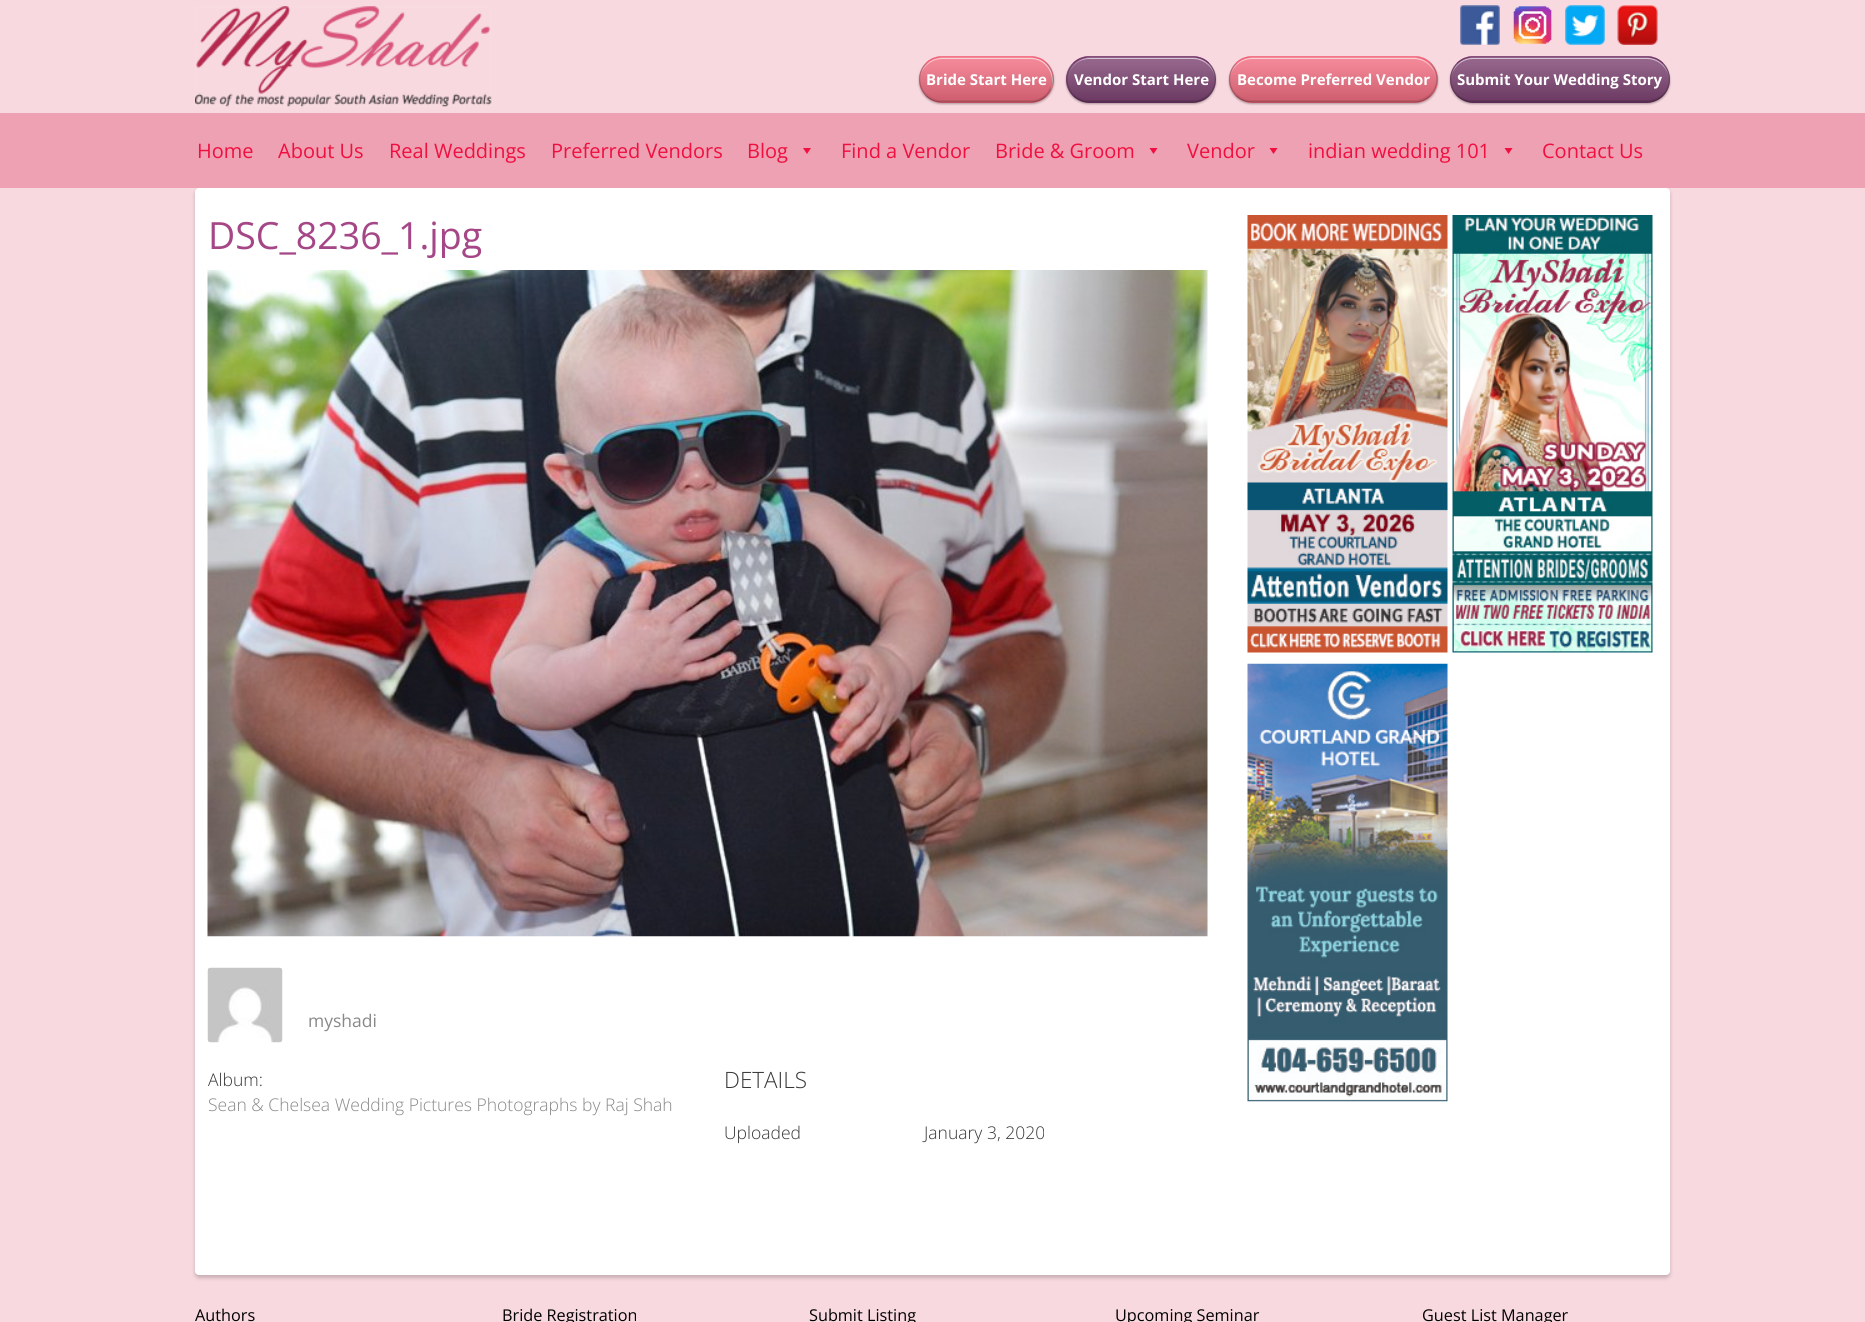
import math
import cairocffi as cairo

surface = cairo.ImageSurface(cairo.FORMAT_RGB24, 1865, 1322)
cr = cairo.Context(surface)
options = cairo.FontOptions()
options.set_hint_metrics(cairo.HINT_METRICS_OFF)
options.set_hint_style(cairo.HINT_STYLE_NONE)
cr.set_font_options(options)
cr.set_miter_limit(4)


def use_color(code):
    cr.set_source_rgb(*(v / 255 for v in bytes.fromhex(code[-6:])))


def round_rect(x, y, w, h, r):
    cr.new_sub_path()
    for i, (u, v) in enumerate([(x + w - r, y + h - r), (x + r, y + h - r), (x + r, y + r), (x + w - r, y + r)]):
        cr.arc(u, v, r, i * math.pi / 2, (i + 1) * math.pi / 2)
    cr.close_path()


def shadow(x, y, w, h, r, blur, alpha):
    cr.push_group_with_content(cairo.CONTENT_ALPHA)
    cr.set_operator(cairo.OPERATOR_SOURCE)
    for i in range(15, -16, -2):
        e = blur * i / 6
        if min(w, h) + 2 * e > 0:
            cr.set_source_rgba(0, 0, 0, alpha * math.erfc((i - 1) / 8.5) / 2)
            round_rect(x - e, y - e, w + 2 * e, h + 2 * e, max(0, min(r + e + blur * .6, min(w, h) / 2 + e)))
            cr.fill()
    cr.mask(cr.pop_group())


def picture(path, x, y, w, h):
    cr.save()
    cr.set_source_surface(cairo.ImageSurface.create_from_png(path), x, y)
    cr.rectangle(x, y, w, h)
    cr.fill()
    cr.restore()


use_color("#f8d9e0")
cr.paint()
picture("img1.png", 195, 6, 297, 101)
picture("img2.png", 1460, 5, 40, 40)
picture("img3.png", 1513, 6, 39, 38)
picture("img4.png", 1565, 5, 40, 40)
picture("img5.png", 1617, 5, 41, 40)
use_color("#000000")
shadow(919, 58, 135, 46, 23, 1, 0.3)
use_color("#f06277")
round_rect(919, 56, 135, 47, 23.5)
cr.fill()
picture("img6.png", 919, 56, 135, 47)
cr.set_source_rgba(0, 0, 0, 0.1)
cr.new_path()
cr.move_to(920, 79)
cr.line_to(920, 80)
cr.curve_to(920, 91, 930, 101, 942, 101)
cr.line_to(1032, 101)
cr.curve_to(1043, 101, 1053, 91, 1053, 80)
cr.curve_to(1053, 76, 1052, 72, 1050, 69)
cr.curve_to(1051, 71, 1052, 75, 1052, 78)
cr.curve_to(1052, 90, 1043, 100, 1031, 100)
cr.line_to(942, 100)
cr.curve_to(930, 100, 920, 90, 920, 79)
cr.close_path()
cr.fill()
cr.set_source_rgba(1, 1, 1, 0.6)
cr.new_path()
cr.move_to(942, 59)
cr.line_to(1031, 59)
cr.curve_to(1043, 59, 1052, 69, 1052, 81)
cr.curve_to(1052, 85, 1051, 88, 1050, 91)
cr.curve_to(1052, 88, 1053, 84, 1053, 80)
cr.curve_to(1053, 68, 1043, 58, 1032, 58)
cr.line_to(942, 58)
cr.curve_to(930, 58, 920, 68, 920, 80)
cr.curve_to(920, 69, 930, 59, 942, 59)
cr.close_path()
cr.fill()
cr.new_path()
cr.move_to(926, 63.5)
cr.curve_to(930, 59, 936, 57, 942, 57)
cr.line_to(1030.5, 57)
cr.curve_to(1036.5, 57, 1042.5, 59, 1046.5, 63.5)
use_color("#f06277")
cr.set_line_width(1.2)
cr.stroke()
cr.new_path()
cr.move_to(1046.5, 63.5)
cr.curve_to(1055, 72, 1055, 86.5, 1046.5, 95.5)
cr.set_source_rgba(0, 0, 0, 0.2)
cr.stroke()
cr.new_path()
cr.move_to(1046.5, 95.5)
cr.curve_to(1042.5, 99.5, 1036.5, 102, 1030.5, 102)
cr.line_to(942, 102)
cr.curve_to(936, 102, 930, 99.5, 926, 95.5)
cr.set_source_rgba(0, 0, 0, 0.3)
cr.stroke()
cr.new_path()
cr.move_to(926, 95.5)
cr.curve_to(917.5, 86.5, 917.5, 72, 926, 63.5)
cr.set_source_rgba(0, 0, 0, 0.2)
cr.stroke()
cr.select_font_face("Open Sans", cairo.FONT_SLANT_NORMAL, cairo.FONT_WEIGHT_BOLD)
cr.set_font_size(15)
use_color("#ffffff")
cr.move_to(926, 85)
cr.show_text("Bride Start Here")
use_color("#000000")
shadow(1066, 58, 150, 46, 23, 1, 0.3)
use_color("#733467")
round_rect(1066, 56, 150, 47, 23.5)
cr.fill()
picture("img7.png", 1066, 56, 150, 46)
cr.set_source_rgba(0, 0, 0, 0.1)
cr.new_path()
cr.move_to(1068, 79)
cr.line_to(1068, 80)
cr.curve_to(1068, 91, 1078, 101, 1090, 101)
cr.line_to(1194, 101)
cr.curve_to(1205, 101, 1215, 91, 1215, 80)
cr.line_to(1215, 79)
cr.curve_to(1215, 90, 1205, 100, 1193, 100)
cr.line_to(1089, 100)
cr.curve_to(1077, 100, 1068, 90, 1068, 79)
cr.close_path()
cr.fill()
cr.set_source_rgba(1, 1, 1, 0.6)
cr.new_path()
cr.move_to(1089, 59)
cr.line_to(1193, 59)
cr.curve_to(1205, 59, 1215, 69, 1215, 80)
cr.curve_to(1215, 68, 1205, 58, 1194, 58)
cr.line_to(1090, 58)
cr.curve_to(1078, 58, 1068, 68, 1068, 80)
cr.curve_to(1068, 69, 1077, 59, 1089, 59)
cr.close_path()
cr.fill()
cr.new_path()
cr.move_to(1073.5, 63.5)
cr.curve_to(1077.5, 59, 1083.5, 57, 1089.5, 57)
cr.line_to(1193, 57)
cr.curve_to(1199, 57, 1205, 59, 1209, 63.5)
use_color("#733467")
cr.stroke()
cr.new_path()
cr.move_to(1209, 63.5)
cr.curve_to(1217.5, 72, 1217.5, 86.5, 1209, 95.5)
cr.set_source_rgba(0, 0, 0, 0.2)
cr.stroke()
cr.new_path()
cr.move_to(1209, 95.5)
cr.curve_to(1205, 99.5, 1199, 102, 1193, 102)
cr.line_to(1089.5, 102)
cr.curve_to(1083.5, 102, 1077.5, 99.5, 1073.5, 95.5)
cr.set_source_rgba(0, 0, 0, 0.3)
cr.stroke()
cr.new_path()
cr.move_to(1073.5, 95.5)
cr.curve_to(1065, 86.5, 1065, 72, 1073.5, 63.5)
cr.set_source_rgba(0, 0, 0, 0.2)
cr.stroke()
use_color("#ffffff")
cr.move_to(1074, 85)
cr.show_text("Vendor Start Here")
use_color("#000000")
shadow(1229, 58, 209, 46, 23, 1, 0.3)
use_color("#f06277")
round_rect(1229, 56, 209, 47, 23.5)
cr.fill()
picture("img8.png", 1229, 56, 209, 47)
cr.set_source_rgba(0, 0, 0, 0.1)
cr.new_path()
cr.move_to(1230, 79)
cr.line_to(1230, 80)
cr.curve_to(1230, 91, 1240, 101, 1252, 101)
cr.line_to(1414, 101)
cr.curve_to(1426, 101, 1436, 91, 1436, 80)
cr.line_to(1436, 79)
cr.curve_to(1436, 90, 1426, 100, 1414, 100)
cr.line_to(1252, 100)
cr.curve_to(1240, 100, 1230, 90, 1230, 79)
cr.close_path()
cr.fill()
cr.set_source_rgba(1, 1, 1, 0.6)
cr.new_path()
cr.move_to(1252, 59)
cr.line_to(1414, 59)
cr.curve_to(1426, 59, 1436, 69, 1436, 80)
cr.curve_to(1436, 68, 1426, 58, 1414, 58)
cr.line_to(1252, 58)
cr.curve_to(1240, 58, 1230, 68, 1230, 80)
cr.curve_to(1230, 69, 1240, 59, 1252, 59)
cr.close_path()
cr.fill()
cr.new_path()
cr.move_to(1236, 63.5)
cr.curve_to(1240, 59, 1246, 57, 1252, 57)
cr.line_to(1414.5, 57)
cr.curve_to(1420.5, 57, 1426, 59, 1430.5, 63.5)
use_color("#f06277")
cr.stroke()
cr.new_path()
cr.move_to(1430.5, 63.5)
cr.curve_to(1439, 72, 1439, 86.5, 1430.5, 95.5)
cr.set_source_rgba(0, 0, 0, 0.2)
cr.stroke()
cr.new_path()
cr.move_to(1430.5, 95.5)
cr.curve_to(1426, 99.5, 1420.5, 102, 1414.5, 102)
cr.line_to(1252, 102)
cr.curve_to(1246, 102, 1240, 99.5, 1236, 95.5)
cr.set_source_rgba(0, 0, 0, 0.3)
cr.stroke()
cr.new_path()
cr.move_to(1236, 95.5)
cr.curve_to(1227.5, 86.5, 1227.5, 72, 1236, 63.5)
cr.set_source_rgba(0, 0, 0, 0.2)
cr.stroke()
use_color("#ffffff")
cr.move_to(1237, 85)
cr.show_text("Become Preferred Vendor")
use_color("#000000")
shadow(1450, 58, 220, 46, 23, 1, 0.3)
use_color("#733467")
round_rect(1450, 56, 220, 47, 23.5)
cr.fill()
picture("img9.png", 1450, 56, 220, 46)
cr.set_source_rgba(0, 0, 0, 0.1)
cr.new_path()
cr.move_to(1451, 79)
cr.line_to(1451, 80)
cr.curve_to(1451, 91, 1461, 101, 1472, 101)
cr.line_to(1648, 101)
cr.curve_to(1659, 101, 1669, 91, 1669, 80)
cr.line_to(1669, 79)
cr.curve_to(1669, 90, 1659, 100, 1647, 100)
cr.line_to(1473, 100)
cr.curve_to(1461, 100, 1451, 90, 1451, 79)
cr.close_path()
cr.fill()
cr.set_source_rgba(1, 1, 1, 0.6)
cr.new_path()
cr.move_to(1473, 59)
cr.line_to(1647, 59)
cr.curve_to(1659, 59, 1669, 69, 1669, 80)
cr.curve_to(1669, 68, 1659, 58, 1648, 58)
cr.line_to(1472, 58)
cr.curve_to(1461, 58, 1451, 68, 1451, 80)
cr.curve_to(1451, 69, 1461, 59, 1473, 59)
cr.close_path()
cr.fill()
cr.new_path()
cr.move_to(1457, 63.5)
cr.curve_to(1461.5, 59, 1467, 57, 1473, 57)
cr.line_to(1647, 57)
cr.curve_to(1653, 57, 1658.5, 59, 1663, 63.5)
use_color("#733467")
cr.stroke()
cr.new_path()
cr.move_to(1663, 63.5)
cr.curve_to(1671.5, 72, 1671.5, 86.5, 1663, 95.5)
cr.set_source_rgba(0, 0, 0, 0.2)
cr.stroke()
cr.new_path()
cr.move_to(1663, 95.5)
cr.curve_to(1658.5, 99.5, 1653, 102, 1647, 102)
cr.line_to(1473, 102)
cr.curve_to(1467, 102, 1461.5, 99.5, 1457, 95.5)
cr.set_source_rgba(0, 0, 0, 0.3)
cr.stroke()
cr.new_path()
cr.move_to(1457, 95.5)
cr.curve_to(1448.5, 86.5, 1448.5, 72, 1457, 63.5)
cr.set_source_rgba(0, 0, 0, 0.2)
cr.stroke()
use_color("#ffffff")
cr.move_to(1457, 85)
cr.show_text("Submit Your Wedding Story")
use_color("#000000")
shadow(195, 190, 1475, 1088, 4, 2, 0.2)
use_color("#eea1b3")
cr.rectangle(0, 113, 1865, 75)
cr.fill()
cr.select_font_face("Open Sans")
cr.set_font_size(20)
use_color("#f00f3f")
cr.move_to(197, 158)
cr.show_text("Home")
cr.move_to(278, 158)
cr.show_text("About Us")
cr.move_to(389, 158)
cr.show_text("Real Weddings")
cr.move_to(551, 158)
cr.show_text("Preferred Vendors")
cr.move_to(747, 158)
cr.show_text("Blog")
cr.new_path()
cr.move_to(811, 148)
cr.line_to(807, 154)
cr.line_to(803, 148)
cr.close_path()
cr.fill()
cr.move_to(841, 158)
cr.show_text("Find a Vendor")
cr.move_to(995, 158)
cr.show_text("Bride & Groom")
cr.new_path()
cr.move_to(1157.5, 148)
cr.line_to(1153.5, 154)
cr.line_to(1149.5, 148)
cr.close_path()
cr.fill()
cr.move_to(1187, 158)
cr.show_text("Vendor")
cr.new_path()
cr.move_to(1277.5, 148)
cr.line_to(1273.5, 154)
cr.line_to(1269.5, 148)
cr.close_path()
cr.fill()
cr.move_to(1308, 158)
cr.show_text("indian wedding 101")
cr.new_path()
cr.move_to(1512.5, 148)
cr.line_to(1508.5, 154)
cr.line_to(1504.5, 148)
cr.close_path()
cr.fill()
cr.move_to(1542, 158)
cr.show_text("Contact Us")
use_color("#ffffff")
round_rect(195, 188, 1475, 1087, 4)
cr.fill()
cr.set_font_size(37.5)
use_color("#a54686")
cr.move_to(208, 249)
cr.show_text("DSC_8236_1.jpg")
picture("img10.png", 207, 270, 1001, 667)
picture("img11.png", 207, 967, 76, 76)
cr.set_font_size(17.5)
use_color("#888888")
cr.move_to(308, 1027)
cr.show_text("myshadi")
cr.select_font_face("Open Sans Light")
use_color("#363636")
cr.move_to(208, 1086)
cr.show_text("Album:")
use_color("#888888")
cr.move_to(208, 1111)
cr.show_text("Sean & Chelsea Wedding Pictures Photographs by Raj Shah")
cr.set_font_size(22.5)
use_color("#363636")
cr.move_to(724, 1088)
cr.show_text("DETAILS")
cr.set_font_size(17.5)
cr.move_to(724, 1139)
cr.show_text("Uploaded")
cr.move_to(924, 1139)
cr.show_text("January 3, 2020")
picture("img12.png", 1247, 215, 201, 438)
picture("img13.png", 1452, 215, 201, 438)
picture("img14.png", 1247, 663, 201, 439)
cr.select_font_face("Open Sans")
cr.set_font_size(16.25)
use_color("#000000")
cr.move_to(195, 1321)
cr.show_text("Authors")
cr.move_to(502, 1321)
cr.show_text("Bride Registration")
cr.move_to(809, 1321)
cr.show_text("Submit Listing")
cr.move_to(1115, 1321)
cr.show_text("Upcoming Seminar")
cr.move_to(1422, 1321)
cr.show_text("Guest List Manager")
surface.write_to_png("result.png")
